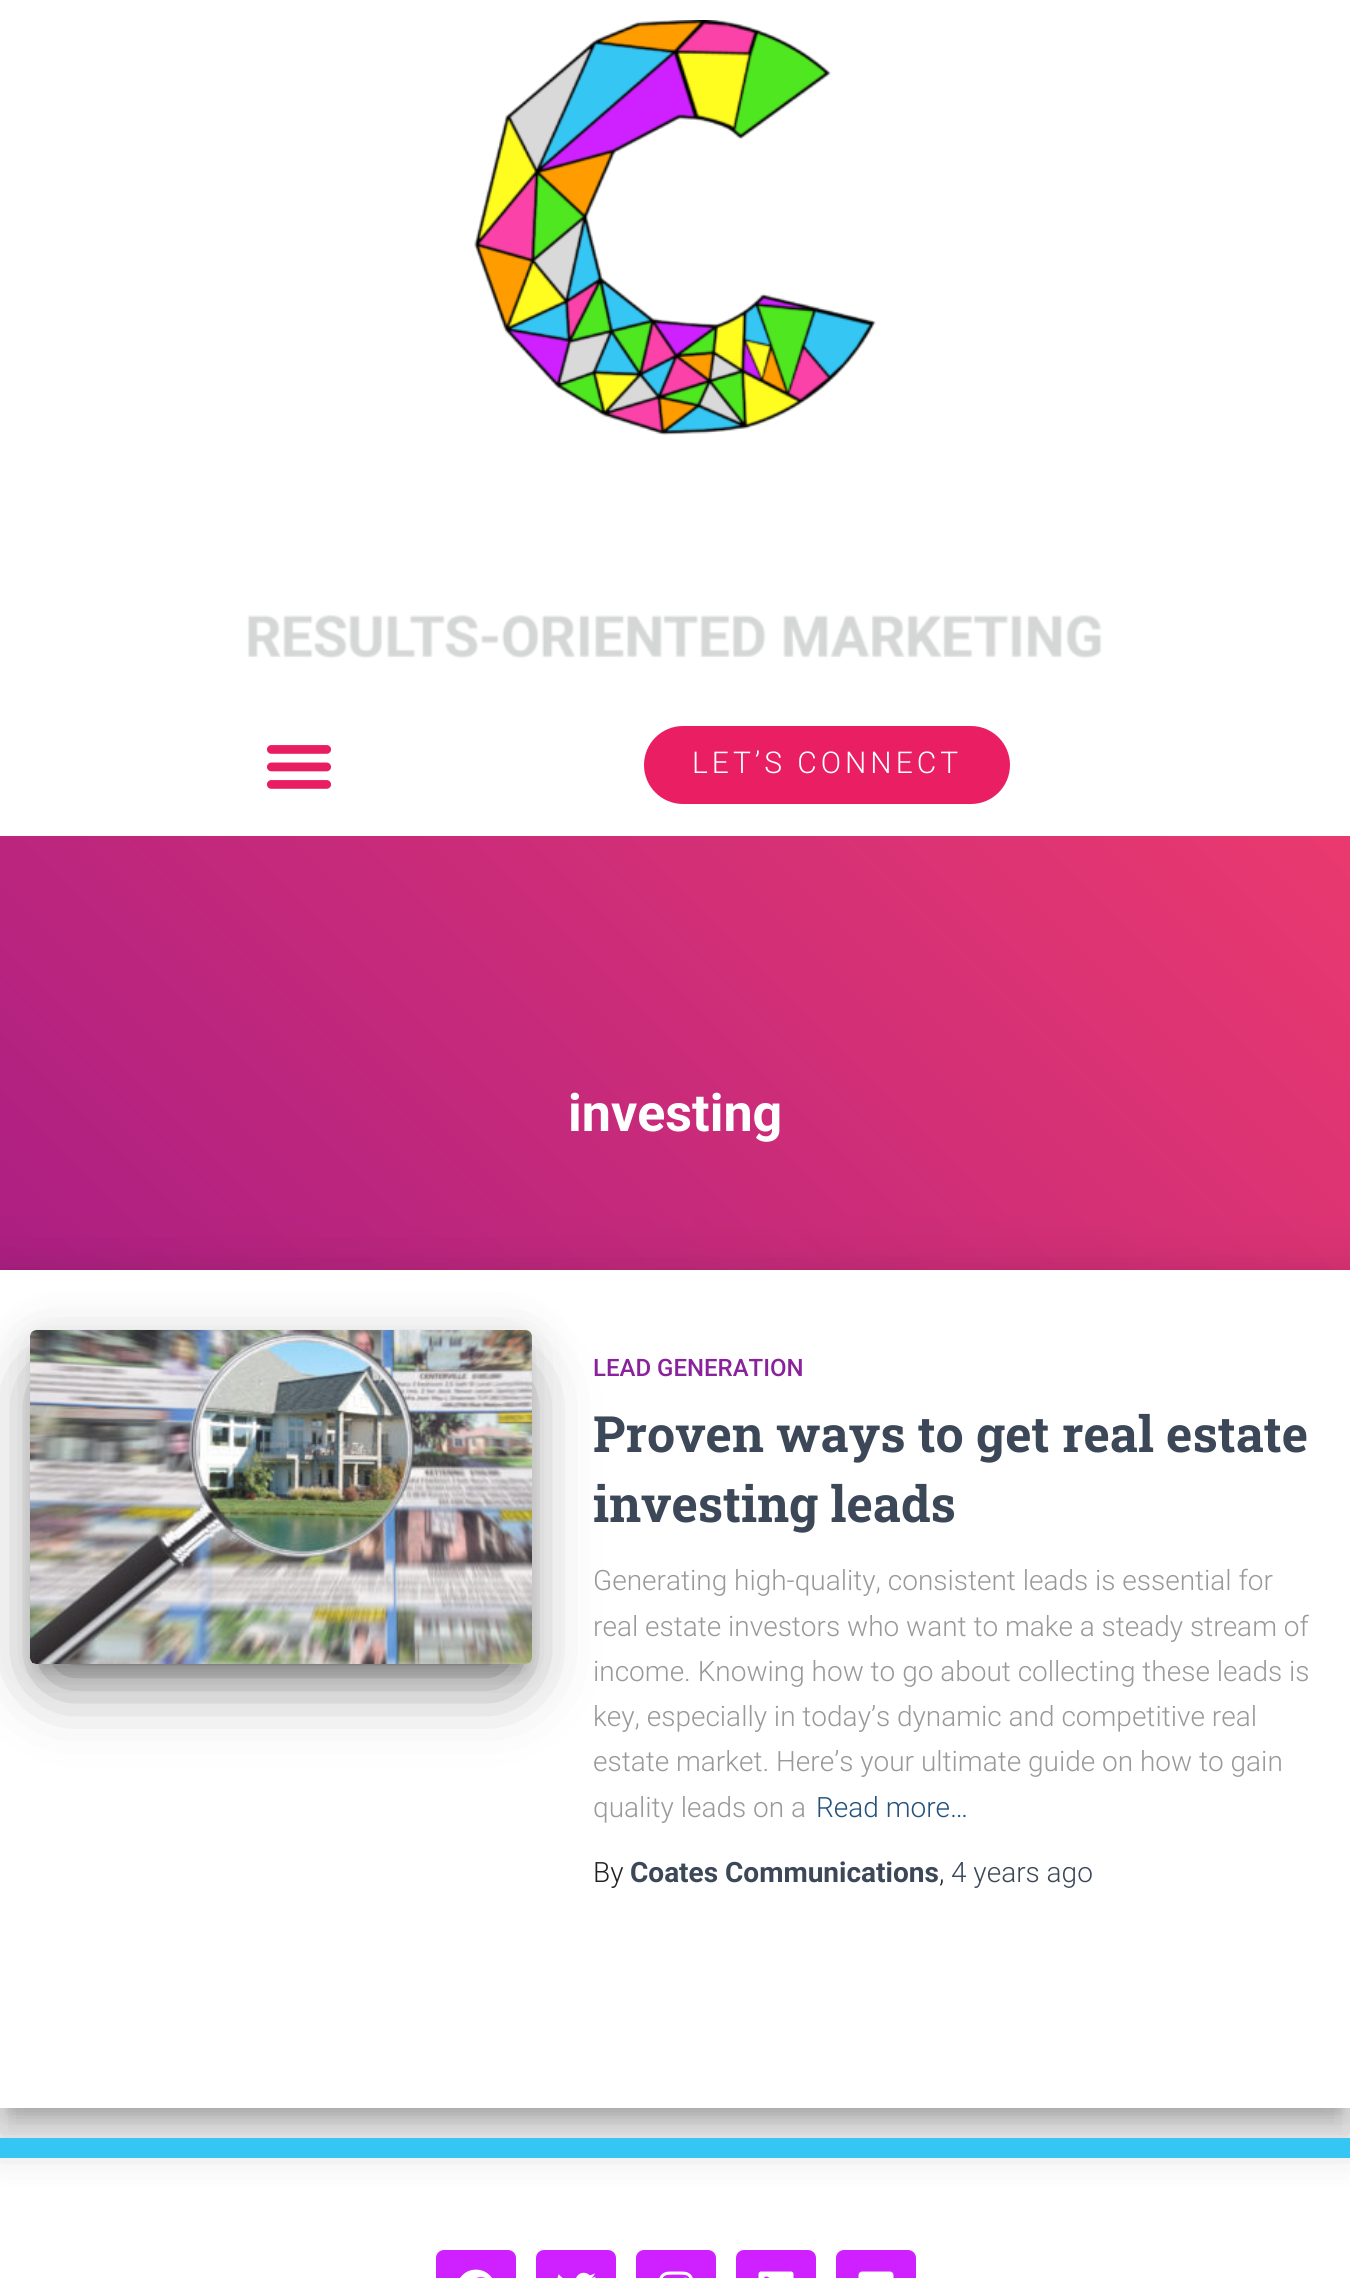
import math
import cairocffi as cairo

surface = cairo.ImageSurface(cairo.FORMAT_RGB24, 1350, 2278)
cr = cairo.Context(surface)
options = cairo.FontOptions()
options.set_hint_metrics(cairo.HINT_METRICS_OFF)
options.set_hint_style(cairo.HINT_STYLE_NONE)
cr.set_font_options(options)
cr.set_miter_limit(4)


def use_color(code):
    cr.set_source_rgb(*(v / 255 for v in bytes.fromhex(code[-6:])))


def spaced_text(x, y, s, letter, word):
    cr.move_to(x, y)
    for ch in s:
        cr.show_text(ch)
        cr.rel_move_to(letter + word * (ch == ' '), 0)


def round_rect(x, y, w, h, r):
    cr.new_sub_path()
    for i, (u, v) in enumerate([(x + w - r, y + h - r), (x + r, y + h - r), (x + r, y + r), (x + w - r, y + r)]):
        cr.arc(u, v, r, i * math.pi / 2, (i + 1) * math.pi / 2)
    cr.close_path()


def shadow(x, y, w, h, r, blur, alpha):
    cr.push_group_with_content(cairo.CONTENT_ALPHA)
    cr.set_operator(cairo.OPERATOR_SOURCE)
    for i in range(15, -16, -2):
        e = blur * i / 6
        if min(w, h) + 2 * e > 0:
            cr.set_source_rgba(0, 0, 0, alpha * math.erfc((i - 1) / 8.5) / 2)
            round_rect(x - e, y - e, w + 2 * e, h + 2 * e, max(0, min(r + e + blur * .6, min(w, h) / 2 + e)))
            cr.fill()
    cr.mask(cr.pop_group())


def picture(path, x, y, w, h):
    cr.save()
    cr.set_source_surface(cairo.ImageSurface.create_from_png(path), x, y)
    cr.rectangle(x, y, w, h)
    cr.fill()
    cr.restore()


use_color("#ffffff")
cr.paint()
picture("img1.png", 247, 20, 855, 639)
picture("img2.png", 266, 745, 66, 44)
use_color("#e91e63")
round_rect(644, 726, 366, 78, 39)
cr.fill()
cr.select_font_face("Roboto Light")
cr.set_font_size(30)
use_color("#ffffff")
spaced_text(692, 773, "LET’S CONNECT", 4, 0)
gradient = cairo.LinearGradient(199, 1589, 1151, 637)
gradient.add_color_stop_rgba(0, 0.659, 0.114, 0.518, 1)
gradient.add_color_stop_rgba(1, 0.918, 0.224, 0.435, 1)
cr.set_source(gradient)
cr.rectangle(0, 836, 1350, 434)
cr.fill()
cr.select_font_face("Roboto", cairo.FONT_SLANT_NORMAL, cairo.FONT_WEIGHT_BOLD)
cr.set_font_size(52)
use_color("#ffffff")
cr.move_to(568, 1131)
cr.show_text("investing")
use_color("#000000")
shadow(10, 1296, 1330, 818, 0, 10, 0.2)
shadow(-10, 1272, 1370, 858, 0, 30, 0.12)
shadow(-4, 1298, 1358, 846, 0, 24, 0.14)
use_color("#ffffff")
cr.rectangle(0, 1270, 1350, 838)
cr.fill()
use_color("#000000")
shadow(40, 1356, 482, 314, 0, 10, 0.2)
shadow(30, 1338, 502, 334, 6, 25, 0.12)
shadow(54, 1386, 454, 286, 0, 38, 0.56)
picture("img3.png", 30, 1330, 502, 334)
cr.select_font_face("Roboto Medium")
cr.set_font_size(24)
use_color("#89229b")
cr.move_to(593, 1376)
cr.show_text("LEAD GENERATION")
cr.select_font_face("Roboto Slab", cairo.FONT_SLANT_NORMAL, cairo.FONT_WEIGHT_BOLD)
cr.set_font_size(50)
use_color("#3c4858")
cr.move_to(593, 1452)
cr.show_text("Proven ways to get real estate")
cr.move_to(593, 1522)
cr.show_text("investing leads")
cr.select_font_face("Roboto Light")
cr.set_font_size(28)
use_color("#999999")
cr.move_to(593, 1590)
cr.show_text("Generating high-quality, consistent leads is essential for")
cr.move_to(593, 1636)
cr.show_text("real estate investors who want to make a steady stream of")
cr.move_to(593, 1681)
cr.show_text("income. Knowing how to go about collecting these leads is")
cr.move_to(593, 1726)
cr.show_text("key, especially in today’s dynamic and competitive real")
cr.move_to(593, 1771)
cr.show_text("estate market. Here’s your ultimate guide on how to gain")
cr.move_to(593, 1817)
cr.show_text("quality leads on a")
use_color("#23527c")
cr.move_to(816, 1817)
cr.show_text("Read more…")
use_color("#212121")
cr.move_to(593, 1882)
cr.show_text("By")
cr.select_font_face("Roboto", cairo.FONT_SLANT_NORMAL, cairo.FONT_WEIGHT_BOLD)
use_color("#3c4858")
cr.move_to(630, 1882)
cr.show_text("Coates Communications")
cr.select_font_face("Roboto Light")
use_color("#212121")
cr.move_to(939, 1882)
cr.show_text(",")
use_color("#3c4858")
cr.move_to(951, 1882)
cr.show_text("4 years ago")
use_color("#36c6f3")
cr.rectangle(0, 2138, 1350, 20)
cr.fill()
use_color("#cf20ff")
round_rect(436, 2250, 80, 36, 8)
cr.fill()
picture("img4.png", 460, 2269, 32, 9)
round_rect(536, 2250, 80, 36, 8)
cr.fill()
picture("img5.png", 557, 2272, 39, 6)
round_rect(636, 2250, 80, 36, 8)
cr.fill()
picture("img6.png", 659, 2271, 34, 7)
round_rect(736, 2250, 80, 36, 8)
cr.fill()
picture("img7.png", 758, 2271, 36, 7)
round_rect(836, 2250, 80, 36, 8)
cr.fill()
picture("img8.png", 858, 2271, 36, 7)
surface.write_to_png("result.png")
